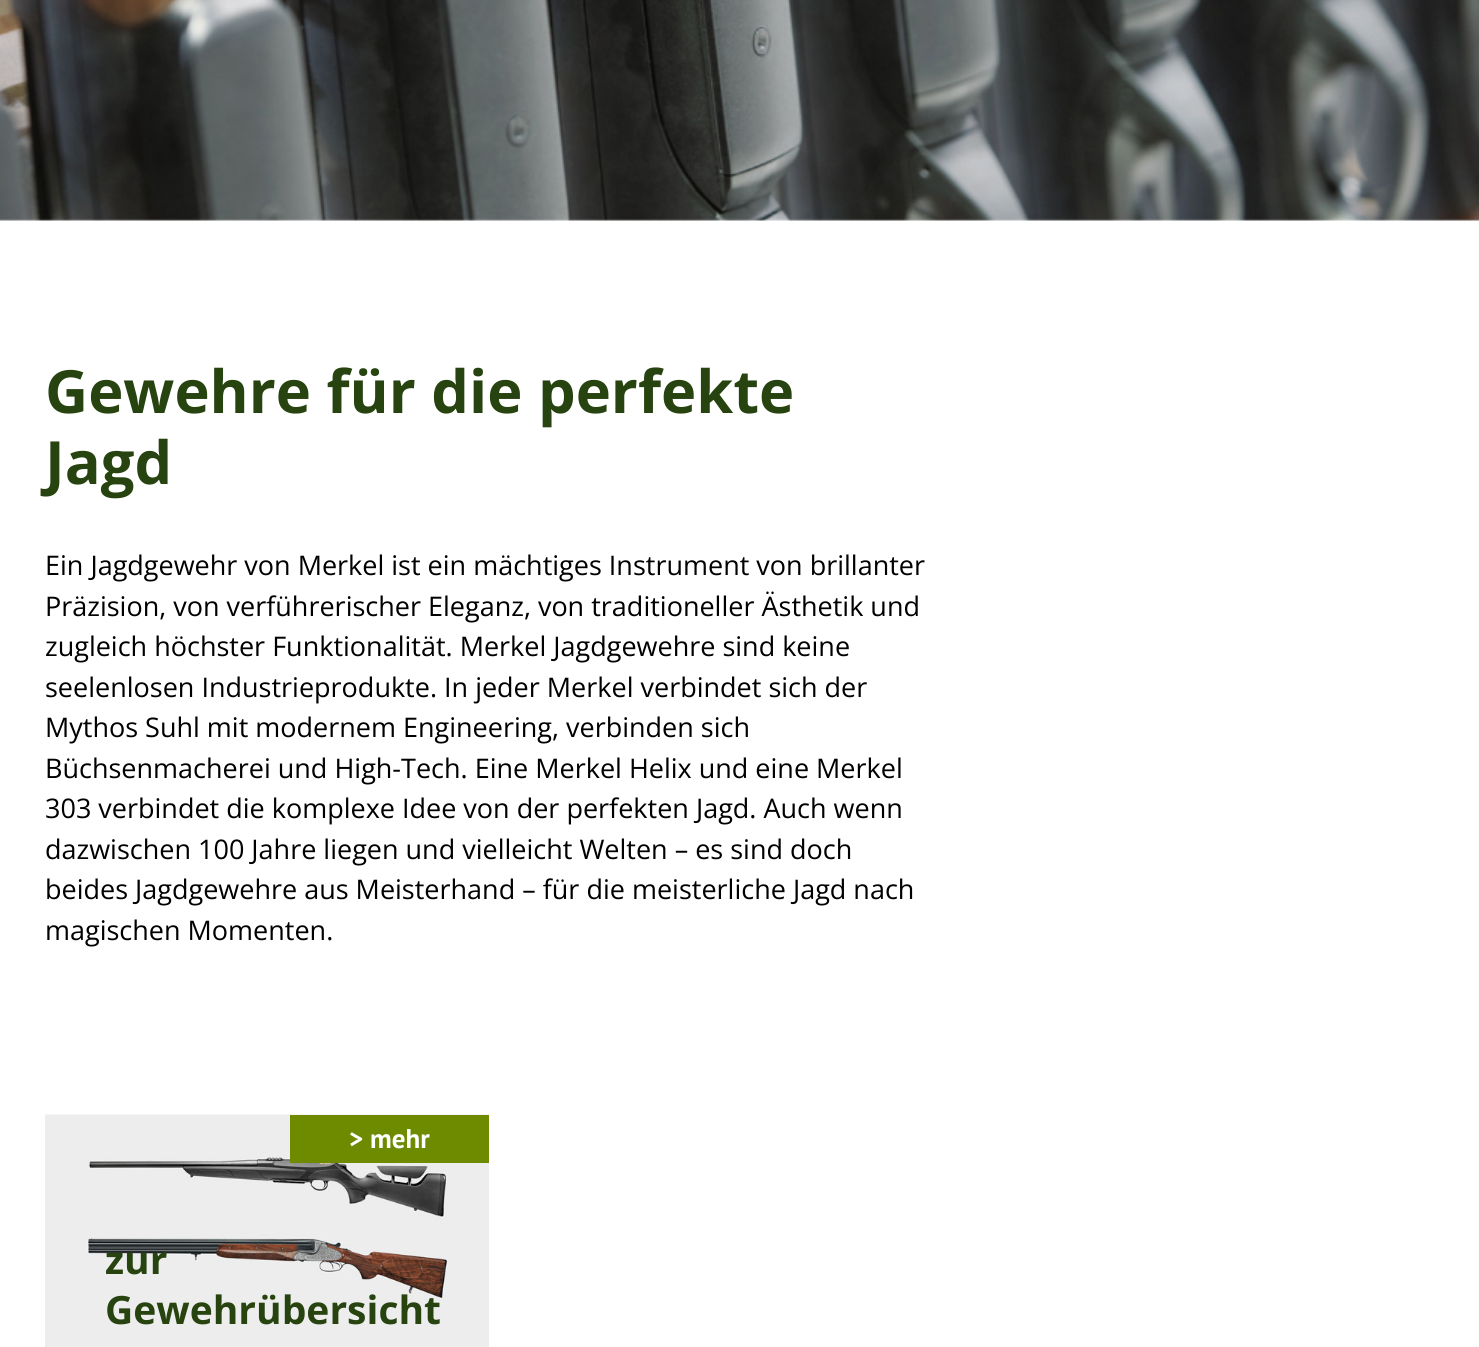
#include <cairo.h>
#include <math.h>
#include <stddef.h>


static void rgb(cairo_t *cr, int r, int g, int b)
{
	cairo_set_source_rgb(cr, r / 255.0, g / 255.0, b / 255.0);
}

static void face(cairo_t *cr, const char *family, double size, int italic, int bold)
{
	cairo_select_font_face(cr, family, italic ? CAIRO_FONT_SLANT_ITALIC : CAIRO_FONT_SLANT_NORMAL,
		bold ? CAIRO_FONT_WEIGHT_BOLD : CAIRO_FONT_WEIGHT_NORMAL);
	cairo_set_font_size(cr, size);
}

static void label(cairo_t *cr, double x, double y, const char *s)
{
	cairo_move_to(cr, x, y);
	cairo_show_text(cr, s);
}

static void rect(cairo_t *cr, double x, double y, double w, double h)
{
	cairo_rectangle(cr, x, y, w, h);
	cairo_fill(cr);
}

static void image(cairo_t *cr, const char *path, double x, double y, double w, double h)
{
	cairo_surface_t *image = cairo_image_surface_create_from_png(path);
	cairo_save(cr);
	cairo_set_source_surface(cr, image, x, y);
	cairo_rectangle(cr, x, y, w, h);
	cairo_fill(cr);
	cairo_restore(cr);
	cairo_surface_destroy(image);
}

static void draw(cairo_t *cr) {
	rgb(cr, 255, 255, 255);
	cairo_paint(cr);
	image(cr, "image0.png", 0, 0, 1479, 221);
	face(cr, "Open Sans", 59.6, 0, 1);
	rgb(cr, 39, 67, 15);
	label(cr, 45, 413, "Gewehre für die perfekte");
	label(cr, 45, 484, "Jagd");
	face(cr, "Open Sans", 27, 0, 0);
	rgb(cr, 0, 0, 0);
	label(cr, 45, 575, "Ein Jagdgewehr von Merkel ist ein mächtiges Instrument von brillanter");
	label(cr, 45, 616, "Präzision, von verführerischer Eleganz, von traditioneller Ästhetik und");
	label(cr, 45, 656, "zugleich höchster Funktionalität. Merkel Jagdgewehre sind keine");
	label(cr, 45, 697, "seelenlosen Industrieprodukte. In jeder Merkel verbindet sich der");
	label(cr, 45, 737, "Mythos Suhl mit modernem Engineering, verbinden sich");
	label(cr, 45, 778, "Büchsenmacherei und High-Tech. Eine Merkel Helix und eine Merkel");
	label(cr, 45, 818, "303 verbindet die komplexe Idee von der perfekten Jagd. Auch wenn");
	label(cr, 45, 859, "dazwischen 100 Jahre liegen und vielleicht Welten – es sind doch");
	label(cr, 45, 899, "beides Jagdgewehre aus Meisterhand – für die meisterliche Jagd nach");
	label(cr, 45, 940, "magischen Momenten.");
	image(cr, "image1.png", 45, 1114, 444, 233);
	rgb(cr, 110, 139, 0);
	rect(cr, 290, 1115, 199, 48);
	face(cr, "PT Sans", 27, 0, 1);
	rgb(cr, 255, 255, 255);
	label(cr, 349, 1148, "> mehr");
	face(cr, "Open Sans", 39, 0, 1);
	rgb(cr, 39, 67, 15);
	label(cr, 105, 1274, "zur");
	label(cr, 105, 1324, "Gewehrübersicht");
}

int main(void) {
	cairo_surface_t *surface = cairo_image_surface_create(CAIRO_FORMAT_RGB24, 1479, 1347);
	cairo_t *cr = cairo_create(surface);
	cairo_font_options_t *options = cairo_font_options_create();
	cairo_font_options_set_hint_metrics(options, CAIRO_HINT_METRICS_OFF);
	cairo_font_options_set_hint_style(options, CAIRO_HINT_STYLE_NONE);
	cairo_set_font_options(cr, options);
	cairo_set_miter_limit(cr, 4);
	draw(cr);
	cairo_surface_write_to_png(surface, "render.png");
	cairo_font_options_destroy(options);
	cairo_destroy(cr);
	cairo_surface_destroy(surface);
	return 0;
}
